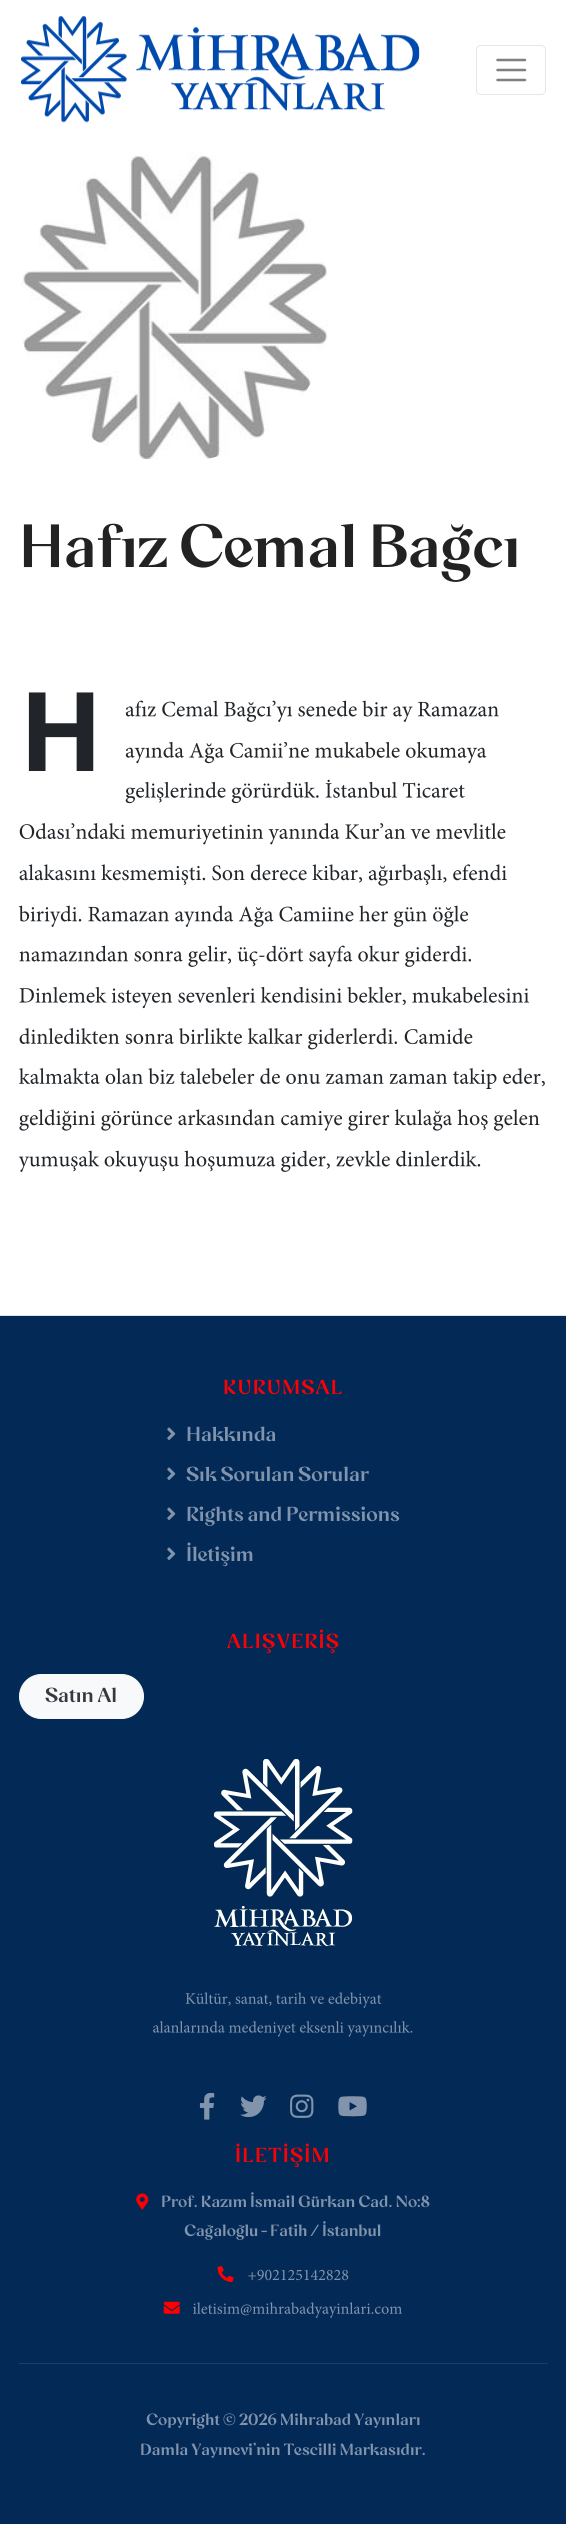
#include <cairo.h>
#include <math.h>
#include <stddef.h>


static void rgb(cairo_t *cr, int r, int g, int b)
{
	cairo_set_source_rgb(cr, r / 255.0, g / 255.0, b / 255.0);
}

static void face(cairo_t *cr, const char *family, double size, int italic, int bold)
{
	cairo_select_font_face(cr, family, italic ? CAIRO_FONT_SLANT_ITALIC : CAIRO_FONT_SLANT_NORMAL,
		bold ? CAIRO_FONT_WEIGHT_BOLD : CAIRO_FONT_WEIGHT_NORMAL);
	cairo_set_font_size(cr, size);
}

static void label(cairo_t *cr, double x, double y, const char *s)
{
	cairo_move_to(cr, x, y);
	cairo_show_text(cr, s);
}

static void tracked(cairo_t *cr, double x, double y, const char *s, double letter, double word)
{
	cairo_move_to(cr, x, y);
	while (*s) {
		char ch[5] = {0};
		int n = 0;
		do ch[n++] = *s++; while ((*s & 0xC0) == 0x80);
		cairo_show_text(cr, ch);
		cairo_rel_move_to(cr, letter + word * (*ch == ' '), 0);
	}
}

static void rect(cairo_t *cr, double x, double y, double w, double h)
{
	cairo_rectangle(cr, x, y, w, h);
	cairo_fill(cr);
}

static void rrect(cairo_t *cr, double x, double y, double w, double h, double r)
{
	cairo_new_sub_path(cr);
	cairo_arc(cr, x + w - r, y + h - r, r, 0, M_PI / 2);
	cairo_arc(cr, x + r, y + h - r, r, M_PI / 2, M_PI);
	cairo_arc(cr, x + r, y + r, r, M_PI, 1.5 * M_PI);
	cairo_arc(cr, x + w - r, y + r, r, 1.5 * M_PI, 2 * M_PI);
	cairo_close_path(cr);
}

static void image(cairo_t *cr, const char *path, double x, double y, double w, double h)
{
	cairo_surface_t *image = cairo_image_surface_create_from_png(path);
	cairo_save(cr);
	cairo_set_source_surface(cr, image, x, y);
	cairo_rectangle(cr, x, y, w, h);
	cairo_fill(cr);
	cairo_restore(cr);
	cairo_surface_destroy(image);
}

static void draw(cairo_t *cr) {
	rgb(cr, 255, 255, 255);
	cairo_paint(cr);
	image(cr, "image0.png", 21, 16, 399, 107);
	rrect(cr, 476.5, 45.5, 69, 49, 4.5);
	rgb(cr, 230, 230, 230);
	cairo_set_line_width(cr, 1);
	cairo_stroke(cr);
	cairo_new_path(cr);
	cairo_move_to(cr, 497.5, 60);
	cairo_line_to(cr, 525, 60);
	cairo_move_to(cr, 497.5, 70);
	cairo_line_to(cr, 525, 70);
	cairo_move_to(cr, 497.5, 80);
	cairo_line_to(cr, 525, 80);
	rgb(cr, 128, 128, 128);
	cairo_set_line_width(cr, 2.5);
	cairo_set_line_cap(cr, CAIRO_LINE_CAP_ROUND);
	cairo_stroke(cr);
	image(cr, "image1.png", 21, 152, 307, 308);
	face(cr, "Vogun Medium", 60, 0, 0);
	rgb(cr, 34, 34, 34);
	label(cr, 19, 567, "Hafız Cemal Bağcı");
	face(cr, "Noto Sans", 110, 0, 1);
	rgb(cr, 33, 37, 41);
	label(cr, 19, 771, "H");
	image(cr, "image2.png", 125, 700, 374, 22);
	image(cr, "image3.png", 125, 741, 362, 23);
	image(cr, "image4.png", 125, 779, 340, 25);
	image(cr, "image5.png", 19, 823, 487, 22);
	image(cr, "image6.png", 19, 864, 488, 22);
	image(cr, "image7.png", 18, 905, 64, 22);
	image(cr, "image8.png", 88, 905, 381, 22);
	image(cr, "image9.png", 19, 945, 452, 22);
	image(cr, "image10.png", 19, 986, 510, 23);
	image(cr, "image11.png", 19, 1028, 378, 22);
	image(cr, "image12.png", 404, 1028, 69, 17);
	image(cr, "image13.png", 19, 1068, 526, 21);
	image(cr, "image14.png", 19, 1109, 521, 22);
	image(cr, "image15.png", 18, 1150, 463, 22);
	rgb(cr, 3, 41, 87);
	rect(cr, 0, 1316, 566, 1208);
	rgb(cr, 222, 226, 230);
	rect(cr, 0, 1315, 566, 1);
	face(cr, "Vogun Medium", 20, 0, 0);
	rgb(cr, 255, 0, 2);
	tracked(cr, 223, 1394, "KURUMSAL", 1.25, 0);
	image(cr, "image16.png", 167, 1427, 9, 13);
	rgb(cr, 129, 148, 171);
	label(cr, 186, 1441, "Hakkında");
	image(cr, "image16.png", 167, 1467, 9, 13);
	label(cr, 186, 1481, "Sık Sorulan Sorular");
	image(cr, "image16.png", 167, 1507, 9, 13);
	label(cr, 186, 1521, "Rights and Permissions");
	image(cr, "image16.png", 167, 1547, 9, 13);
	label(cr, 186, 1561, "İletişim");
	rgb(cr, 255, 0, 2);
	tracked(cr, 227, 1648, "ALIŞVERİŞ", 1.25, 0);
	rgb(cr, 248, 249, 250);
	rrect(cr, 19.5, 1674.5, 124, 44, 22);
	cairo_fill_preserve(cr);
	cairo_set_line_width(cr, 1);
	cairo_set_line_cap(cr, CAIRO_LINE_CAP_BUTT);
	cairo_stroke(cr);
	rgb(cr, 52, 58, 64);
	label(cr, 45, 1702, "Satın Al");
	image(cr, "image17.png", 214, 1759, 139, 187);
	image(cr, "image18.png", 185, 1992, 197, 16);
	image(cr, "image19.png", 153, 2021, 260, 16);
	image(cr, "image20.png", 199, 2092, 16, 28);
	image(cr, "image21.png", 240, 2095, 27, 23);
	image(cr, "image22.png", 290, 2094, 24, 24);
	image(cr, "image23.png", 338, 2096, 29, 21);
	rgb(cr, 255, 0, 2);
	tracked(cr, 235, 2162, "İLETİŞİM", 1.25, 0);
	image(cr, "image24.png", 136, 2193, 13, 17);
	face(cr, "Vogun Medium", 16, 0, 0);
	rgb(cr, 129, 148, 171);
	label(cr, 161, 2207, "Prof. Kazım İsmail Gürkan Cad. No:8");
	label(cr, 184, 2236, "Cağaloğlu - Fatih / İstanbul");
	image(cr, "image25.png", 217, 2266, 17, 16);
	image(cr, "image26.png", 248, 2269, 101, 12);
	image(cr, "image27.png", 163, 2301, 17, 13);
	image(cr, "image28.png", 193, 2302, 209, 16);
	rgb(cr, 28, 62, 104);
	rect(cr, 19, 2363, 529, 1);
	rgb(cr, 129, 148, 171);
	label(cr, 146, 2425, "Copyright © 2026 Mihrabad Yayınları");
	label(cr, 140, 2455, "Damla Yayınevi'nin Tescilli Markasıdır.");
}

int main(void) {
	cairo_surface_t *surface = cairo_image_surface_create(CAIRO_FORMAT_RGB24, 566, 2529);
	cairo_t *cr = cairo_create(surface);
	cairo_font_options_t *options = cairo_font_options_create();
	cairo_font_options_set_hint_metrics(options, CAIRO_HINT_METRICS_OFF);
	cairo_font_options_set_hint_style(options, CAIRO_HINT_STYLE_NONE);
	cairo_set_font_options(cr, options);
	cairo_set_miter_limit(cr, 4);
	draw(cr);
	cairo_surface_write_to_png(surface, "render.png");
	cairo_font_options_destroy(options);
	cairo_destroy(cr);
	cairo_surface_destroy(surface);
	return 0;
}
